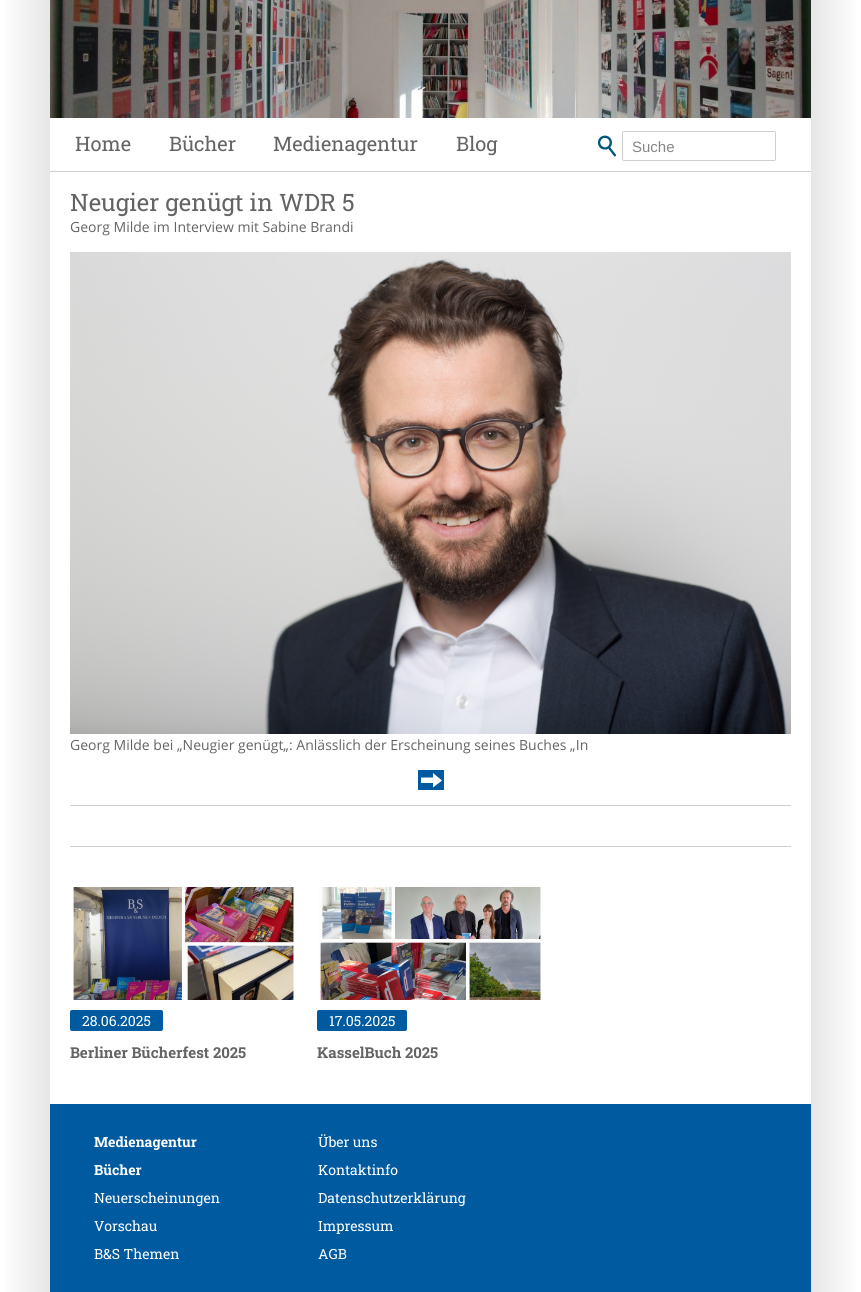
#include <cairo.h>
#include <math.h>
#include <stddef.h>


static void rgb(cairo_t *cr, int r, int g, int b)
{
	cairo_set_source_rgb(cr, r / 255.0, g / 255.0, b / 255.0);
}

static void face(cairo_t *cr, const char *family, double size, int italic, int bold)
{
	cairo_select_font_face(cr, family, italic ? CAIRO_FONT_SLANT_ITALIC : CAIRO_FONT_SLANT_NORMAL,
		bold ? CAIRO_FONT_WEIGHT_BOLD : CAIRO_FONT_WEIGHT_NORMAL);
	cairo_set_font_size(cr, size);
}

static void label(cairo_t *cr, double x, double y, const char *s)
{
	cairo_move_to(cr, x, y);
	cairo_show_text(cr, s);
}

static void rect(cairo_t *cr, double x, double y, double w, double h)
{
	cairo_rectangle(cr, x, y, w, h);
	cairo_fill(cr);
}

static void rrect(cairo_t *cr, double x, double y, double w, double h, double r)
{
	cairo_new_sub_path(cr);
	cairo_arc(cr, x + w - r, y + h - r, r, 0, M_PI / 2);
	cairo_arc(cr, x + r, y + h - r, r, M_PI / 2, M_PI);
	cairo_arc(cr, x + r, y + r, r, M_PI, 1.5 * M_PI);
	cairo_arc(cr, x + w - r, y + r, r, 1.5 * M_PI, 2 * M_PI);
	cairo_close_path(cr);
}

static void image(cairo_t *cr, const char *path, double x, double y, double w, double h)
{
	cairo_surface_t *image = cairo_image_surface_create_from_png(path);
	cairo_save(cr);
	cairo_set_source_surface(cr, image, x, y);
	cairo_rectangle(cr, x, y, w, h);
	cairo_fill(cr);
	cairo_restore(cr);
	cairo_surface_destroy(image);
}

static void draw(cairo_t *cr) {
	cairo_pattern_t *gradient;
	rgb(cr, 255, 255, 255);
	cairo_paint(cr);
	gradient = cairo_pattern_create_linear(0, 567, 50, 567);
	cairo_pattern_add_color_stop_rgba(gradient, 0, 1, 1, 1, 1);
	cairo_pattern_add_color_stop_rgba(gradient, 1, 0.902, 0.902, 0.902, 1);
	cairo_set_source(cr, gradient);
	cairo_pattern_destroy(gradient);
	rect(cr, 5, 0, 45, 1292);
	image(cr, "image0.png", 50, 0, 761, 118);
	face(cr, "Roboto Slab", 20, 0, 0);
	rgb(cr, 100, 100, 100);
	label(cr, 75, 151, "Home");
	label(cr, 169, 151, "Bücher");
	label(cr, 273, 151, "Medienagentur");
	label(cr, 456, 151, "Blog");
	image(cr, "image1.png", 598, 135, 18, 22);
	rrect(cr, 622.5, 131.5, 153, 29, 1.5);
	rgb(cr, 207, 207, 207);
	cairo_set_line_width(cr, 1);
	cairo_stroke(cr);
	face(cr, "Liberation Sans", 15, 0, 0);
	rgb(cr, 135, 135, 135);
	label(cr, 632, 152, "Suche");
	gradient = cairo_pattern_create_linear(861, 567, 811, 567);
	cairo_pattern_add_color_stop_rgba(gradient, 0, 1, 1, 1, 1);
	cairo_pattern_add_color_stop_rgba(gradient, 1, 0.902, 0.902, 0.902, 1);
	cairo_set_source(cr, gradient);
	cairo_pattern_destroy(gradient);
	rect(cr, 811, 0, 45, 1292);
	rgb(cr, 207, 207, 207);
	rect(cr, 50, 171, 761, 1);
	rect(cr, 70, 805, 721, 1);
	face(cr, "Roboto Slab", 24, 0, 0);
	rgb(cr, 100, 100, 100);
	label(cr, 70, 211, "Neugier genügt in WDR 5");
	face(cr, "Open Sans", 14, 0, 0);
	label(cr, 70, 232, "Georg Milde im Interview mit Sabine Brandi");
	image(cr, "image2.png", 70, 252, 721, 482);
	label(cr, 70, 750, "Georg Milde bei „Neugier genügt„: Anlässlich der Erscheinung seines Buches „In");
	rgb(cr, 0, 90, 160);
	rect(cr, 418, 770, 26, 20);
	rgb(cr, 255, 255, 255);
	cairo_new_path(cr);
	cairo_move_to(cr, 442, 780.5);
	cairo_line_to(cr, 433, 787.5);
	cairo_line_to(cr, 433, 783);
	cairo_line_to(cr, 421, 783);
	cairo_line_to(cr, 421, 777.5);
	cairo_line_to(cr, 433, 777.5);
	cairo_line_to(cr, 433, 773);
	cairo_close_path(cr);
	cairo_fill(cr);
	rgb(cr, 207, 207, 207);
	rect(cr, 70, 846, 721, 1);
	image(cr, "image3.png", 73, 887, 222, 113);
	rgb(cr, 0, 90, 160);
	rrect(cr, 70, 1010, 93, 21, 2);
	cairo_fill(cr);
	face(cr, "Roboto Slab", 14, 0, 0);
	rgb(cr, 255, 255, 255);
	label(cr, 82, 1026, "28.06.2025");
	face(cr, "Roboto Slab", 15, 0, 1);
	rgb(cr, 100, 100, 100);
	label(cr, 70, 1058, "Berliner Bücherfest 2025");
	image(cr, "image4.png", 319, 887, 222, 113);
	rgb(cr, 0, 90, 160);
	rrect(cr, 317, 1010, 90, 21, 2);
	cairo_fill(cr);
	face(cr, "Roboto Slab", 14, 0, 0);
	rgb(cr, 255, 255, 255);
	label(cr, 329, 1026, "17.05.2025");
	face(cr, "Roboto Slab", 15, 0, 1);
	rgb(cr, 100, 100, 100);
	label(cr, 317, 1058, "KasselBuch 2025");
	rgb(cr, 0, 90, 160);
	rect(cr, 50, 1104, 761, 188);
	face(cr, "Roboto Slab", 14, 0, 1);
	rgb(cr, 255, 255, 255);
	label(cr, 94, 1147, "Medienagentur");
	label(cr, 94, 1175, "Bücher");
	face(cr, "Roboto Slab", 14, 0, 0);
	label(cr, 94, 1203, "Neuerscheinungen");
	label(cr, 94, 1231, "Vorschau");
	label(cr, 94, 1259, "B&S Themen");
	label(cr, 318, 1147, "Über uns");
	label(cr, 318, 1175, "Kontaktinfo");
	label(cr, 318, 1203, "Datenschutzerklärung");
	label(cr, 318, 1231, "Impressum");
	label(cr, 318, 1259, "AGB");
}

int main(void) {
	cairo_surface_t *surface = cairo_image_surface_create(CAIRO_FORMAT_RGB24, 861, 1292);
	cairo_t *cr = cairo_create(surface);
	cairo_font_options_t *options = cairo_font_options_create();
	cairo_font_options_set_hint_metrics(options, CAIRO_HINT_METRICS_OFF);
	cairo_font_options_set_hint_style(options, CAIRO_HINT_STYLE_NONE);
	cairo_set_font_options(cr, options);
	cairo_set_miter_limit(cr, 4);
	draw(cr);
	cairo_surface_write_to_png(surface, "render.png");
	cairo_font_options_destroy(options);
	cairo_destroy(cr);
	cairo_surface_destroy(surface);
	return 0;
}
